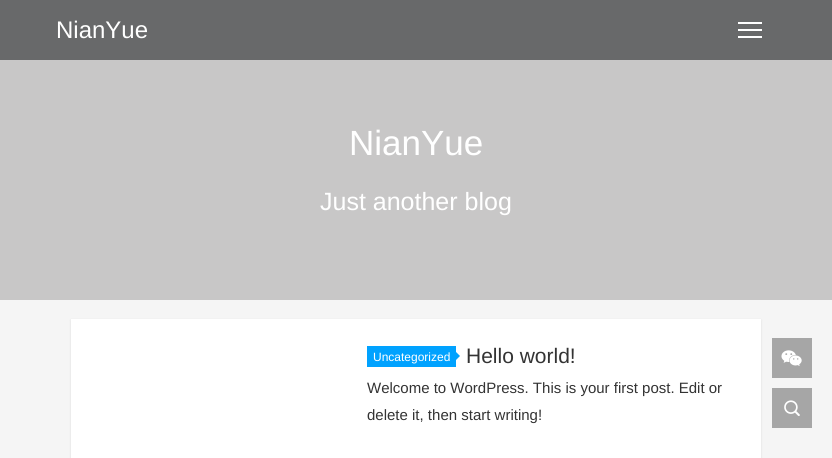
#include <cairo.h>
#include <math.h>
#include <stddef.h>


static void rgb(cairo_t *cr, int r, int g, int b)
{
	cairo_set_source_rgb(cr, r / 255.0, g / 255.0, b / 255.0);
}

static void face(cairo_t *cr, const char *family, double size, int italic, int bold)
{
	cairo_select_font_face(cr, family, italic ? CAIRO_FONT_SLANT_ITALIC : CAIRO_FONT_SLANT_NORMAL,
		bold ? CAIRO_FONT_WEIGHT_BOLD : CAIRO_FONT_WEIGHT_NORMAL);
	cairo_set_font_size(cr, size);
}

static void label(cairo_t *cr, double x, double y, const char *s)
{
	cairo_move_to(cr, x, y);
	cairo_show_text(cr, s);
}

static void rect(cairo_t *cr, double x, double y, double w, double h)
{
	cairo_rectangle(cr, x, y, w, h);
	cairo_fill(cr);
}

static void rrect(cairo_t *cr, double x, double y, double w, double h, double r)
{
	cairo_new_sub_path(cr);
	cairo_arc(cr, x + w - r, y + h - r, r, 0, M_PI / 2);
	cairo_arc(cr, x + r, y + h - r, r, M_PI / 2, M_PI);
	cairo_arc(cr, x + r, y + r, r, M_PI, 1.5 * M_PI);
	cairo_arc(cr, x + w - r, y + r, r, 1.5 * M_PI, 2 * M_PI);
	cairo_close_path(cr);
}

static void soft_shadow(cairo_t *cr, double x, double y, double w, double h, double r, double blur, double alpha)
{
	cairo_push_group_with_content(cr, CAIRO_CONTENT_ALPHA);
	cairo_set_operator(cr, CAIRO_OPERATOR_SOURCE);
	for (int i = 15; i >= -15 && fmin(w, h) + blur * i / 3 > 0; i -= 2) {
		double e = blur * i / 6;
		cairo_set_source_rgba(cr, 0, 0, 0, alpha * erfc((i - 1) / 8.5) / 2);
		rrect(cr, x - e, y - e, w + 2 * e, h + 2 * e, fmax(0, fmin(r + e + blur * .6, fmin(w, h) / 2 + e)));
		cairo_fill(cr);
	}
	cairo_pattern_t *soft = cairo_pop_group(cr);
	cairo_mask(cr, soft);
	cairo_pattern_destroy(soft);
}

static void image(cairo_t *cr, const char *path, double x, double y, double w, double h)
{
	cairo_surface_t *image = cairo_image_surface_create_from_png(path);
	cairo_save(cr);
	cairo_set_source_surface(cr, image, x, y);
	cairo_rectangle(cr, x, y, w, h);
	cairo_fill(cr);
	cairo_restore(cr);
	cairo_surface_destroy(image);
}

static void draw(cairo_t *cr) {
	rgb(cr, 245, 245, 245);
	cairo_paint(cr);
	rgb(cr, 104, 105, 106);
	rect(cr, 0, 0, 832, 60);
	face(cr, "Liberation Sans", 24, 0, 0);
	rgb(cr, 255, 255, 255);
	label(cr, 56, 38, "NianYue");
	rect(cr, 738, 22, 24, 2);
	rect(cr, 738, 29, 24, 2);
	rect(cr, 738, 36, 24, 2);
	rgb(cr, 200, 199, 199);
	rect(cr, 0, 60, 832, 240);
	face(cr, "Liberation Sans", 35, 0, 0);
	rgb(cr, 255, 255, 255);
	label(cr, 349, 155, "NianYue");
	face(cr, "Liberation Sans", 25, 0, 0);
	label(cr, 320, 210, "Just another blog");
	rgb(cr, 0, 0, 0);
	soft_shadow(cr, 71, 320, 690, 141, 0, 1, 0.1);
	rgb(cr, 255, 255, 255);
	rect(cr, 71, 319, 690, 139);
	rgb(cr, 0, 162, 255);
	rect(cr, 367, 346, 89, 21);
	face(cr, "Liberation Sans", 12, 0, 0);
	rgb(cr, 255, 255, 255);
	label(cr, 373, 361, "Uncategorized");
	rgb(cr, 0, 162, 255);
	cairo_new_path(cr);
	cairo_move_to(cr, 456, 360);
	cairo_line_to(cr, 456, 352);
	cairo_line_to(cr, 460, 356);
	cairo_close_path(cr);
	cairo_fill(cr);
	face(cr, "Liberation Sans", 21, 0, 0);
	rgb(cr, 51, 51, 51);
	label(cr, 466, 363, "Hello world!");
	face(cr, "Liberation Sans", 15, 0, 0);
	label(cr, 367, 393, "Welcome to WordPress. This is your first post. Edit or");
	label(cr, 367, 420, "delete it, then start writing!");
	rgb(cr, 166, 166, 166);
	rect(cr, 772, 338, 40, 40);
	image(cr, "image0.png", 781, 350, 21, 16);
	rect(cr, 772, 388, 40, 40);
	image(cr, "image1.png", 784, 400, 16, 16);
}

int main(void) {
	cairo_surface_t *surface = cairo_image_surface_create(CAIRO_FORMAT_RGB24, 832, 458);
	cairo_t *cr = cairo_create(surface);
	cairo_font_options_t *options = cairo_font_options_create();
	cairo_font_options_set_hint_metrics(options, CAIRO_HINT_METRICS_OFF);
	cairo_font_options_set_hint_style(options, CAIRO_HINT_STYLE_NONE);
	cairo_set_font_options(cr, options);
	cairo_set_miter_limit(cr, 4);
	draw(cr);
	cairo_surface_write_to_png(surface, "render.png");
	cairo_font_options_destroy(options);
	cairo_destroy(cr);
	cairo_surface_destroy(surface);
	return 0;
}
